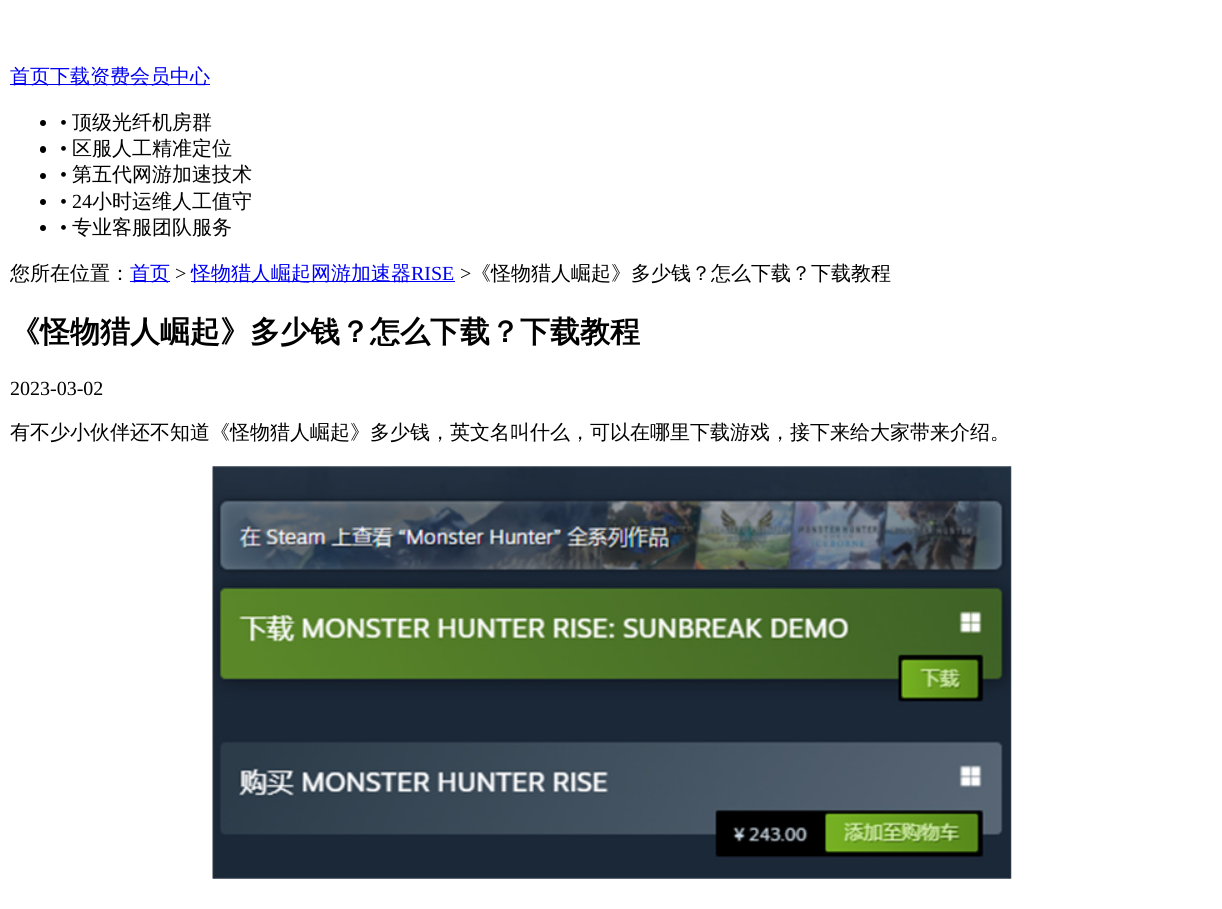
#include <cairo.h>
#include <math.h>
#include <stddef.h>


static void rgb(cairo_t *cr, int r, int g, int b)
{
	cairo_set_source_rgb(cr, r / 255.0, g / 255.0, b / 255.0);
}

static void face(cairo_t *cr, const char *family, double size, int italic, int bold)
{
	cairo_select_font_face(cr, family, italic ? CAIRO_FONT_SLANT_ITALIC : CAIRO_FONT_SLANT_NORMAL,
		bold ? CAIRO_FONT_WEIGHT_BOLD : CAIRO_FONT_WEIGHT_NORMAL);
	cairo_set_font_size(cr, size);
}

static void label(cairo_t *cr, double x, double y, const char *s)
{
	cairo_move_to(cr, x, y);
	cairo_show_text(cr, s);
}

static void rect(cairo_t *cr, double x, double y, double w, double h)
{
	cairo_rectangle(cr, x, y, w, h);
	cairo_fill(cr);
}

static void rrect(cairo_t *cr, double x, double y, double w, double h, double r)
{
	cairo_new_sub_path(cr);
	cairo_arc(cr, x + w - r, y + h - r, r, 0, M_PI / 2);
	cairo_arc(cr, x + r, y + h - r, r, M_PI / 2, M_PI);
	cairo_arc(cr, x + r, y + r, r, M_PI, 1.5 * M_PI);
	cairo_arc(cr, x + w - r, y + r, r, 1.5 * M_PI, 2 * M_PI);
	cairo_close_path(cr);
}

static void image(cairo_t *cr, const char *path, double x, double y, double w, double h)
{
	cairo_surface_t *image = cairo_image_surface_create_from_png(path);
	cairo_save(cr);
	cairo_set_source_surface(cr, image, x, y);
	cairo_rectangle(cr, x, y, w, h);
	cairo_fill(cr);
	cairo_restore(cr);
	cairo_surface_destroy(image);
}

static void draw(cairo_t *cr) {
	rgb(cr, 255, 255, 255);
	cairo_paint(cr);
	rgb(cr, 0, 0, 238);
	rect(cr, 10, 84, 200, 1);
	face(cr, "WenQuanYi Zen Hei Medium", 20, 0, 0);
	label(cr, 10, 83, "首页下载资费会员中心");
	rgb(cr, 0, 0, 0);
	cairo_new_path(cr);
	cairo_arc(cr, 43, 123, 3, 0, 2 * M_PI);
	cairo_fill(cr);
	face(cr, "Liberation Serif", 20, 0, 0);
	label(cr, 60, 129, "•");
	face(cr, "WenQuanYi Zen Hei Medium", 20, 0, 0);
	label(cr, 72, 129, "顶级光纤机房群");
	rrect(cr, 40, 146, 6, 7, 3);
	cairo_fill(cr);
	face(cr, "Liberation Serif", 20, 0, 0);
	label(cr, 60, 155, "•");
	face(cr, "WenQuanYi Zen Hei Medium", 20, 0, 0);
	label(cr, 72, 155, "区服人工精准定位");
	cairo_new_path(cr);
	cairo_arc(cr, 43, 176, 3, 0, 2 * M_PI);
	cairo_fill(cr);
	face(cr, "Liberation Serif", 20, 0, 0);
	label(cr, 60, 181, "•");
	face(cr, "WenQuanYi Zen Hei Medium", 20, 0, 0);
	label(cr, 72, 181, "第五代网游加速技术");
	cairo_new_path(cr);
	cairo_arc(cr, 43, 202, 3, 0, 2 * M_PI);
	cairo_fill(cr);
	face(cr, "Liberation Serif", 20, 0, 0);
	label(cr, 60, 208, "• 24");
	face(cr, "WenQuanYi Zen Hei Medium", 20, 0, 0);
	label(cr, 92, 208, "小时运维人工值守");
	cairo_new_path(cr);
	cairo_arc(cr, 43, 228, 3, 0, 2 * M_PI);
	cairo_fill(cr);
	face(cr, "Liberation Serif", 20, 0, 0);
	label(cr, 60, 234, "•");
	face(cr, "WenQuanYi Zen Hei Medium", 20, 0, 0);
	label(cr, 72, 234, "专业客服团队服务");
	label(cr, 10, 280, "您所在位置：");
	rgb(cr, 0, 0, 238);
	rect(cr, 130, 281, 40, 1);
	label(cr, 130, 280, "首页");
	face(cr, "Liberation Serif", 20, 0, 0);
	rgb(cr, 0, 0, 0);
	label(cr, 175, 280, ">");
	rgb(cr, 0, 0, 238);
	rect(cr, 191, 281, 264, 1);
	face(cr, "WenQuanYi Zen Hei Medium", 20, 0, 0);
	label(cr, 191, 280, "怪物猎人崛起网游加速器");
	face(cr, "Liberation Serif", 20, 0, 0);
	label(cr, 411, 280, "RISE");
	rgb(cr, 0, 0, 0);
	label(cr, 460, 280, ">");
	face(cr, "WenQuanYi Zen Hei Medium", 20, 0, 0);
	label(cr, 471, 280, "《怪物猎人崛起》多少钱？怎么下载？下载教程");
	face(cr, "WenQuanYi Zen Hei", 30, 0, 1);
	label(cr, 10, 342, "《怪物猎人崛起》多少钱？怎么下载？下载教程");
	face(cr, "Liberation Serif", 20, 0, 0);
	label(cr, 10, 395, "2023-03-02");
	face(cr, "WenQuanYi Zen Hei Medium", 20, 0, 0);
	label(cr, 10, 439, "有不少小伙伴还不知道《怪物猎人崛起》多少钱，英文名叫什么，可以在哪里下载游戏，接下来给大家带来介绍。");
	image(cr, "image0.png", 212, 466, 800, 413);
}

int main(void) {
	cairo_surface_t *surface = cairo_image_surface_create(CAIRO_FORMAT_RGB24, 1222, 909);
	cairo_t *cr = cairo_create(surface);
	cairo_font_options_t *options = cairo_font_options_create();
	cairo_font_options_set_hint_metrics(options, CAIRO_HINT_METRICS_OFF);
	cairo_font_options_set_hint_style(options, CAIRO_HINT_STYLE_NONE);
	cairo_set_font_options(cr, options);
	cairo_set_miter_limit(cr, 4);
	draw(cr);
	cairo_surface_write_to_png(surface, "render.png");
	cairo_font_options_destroy(options);
	cairo_destroy(cr);
	cairo_surface_destroy(surface);
	return 0;
}
